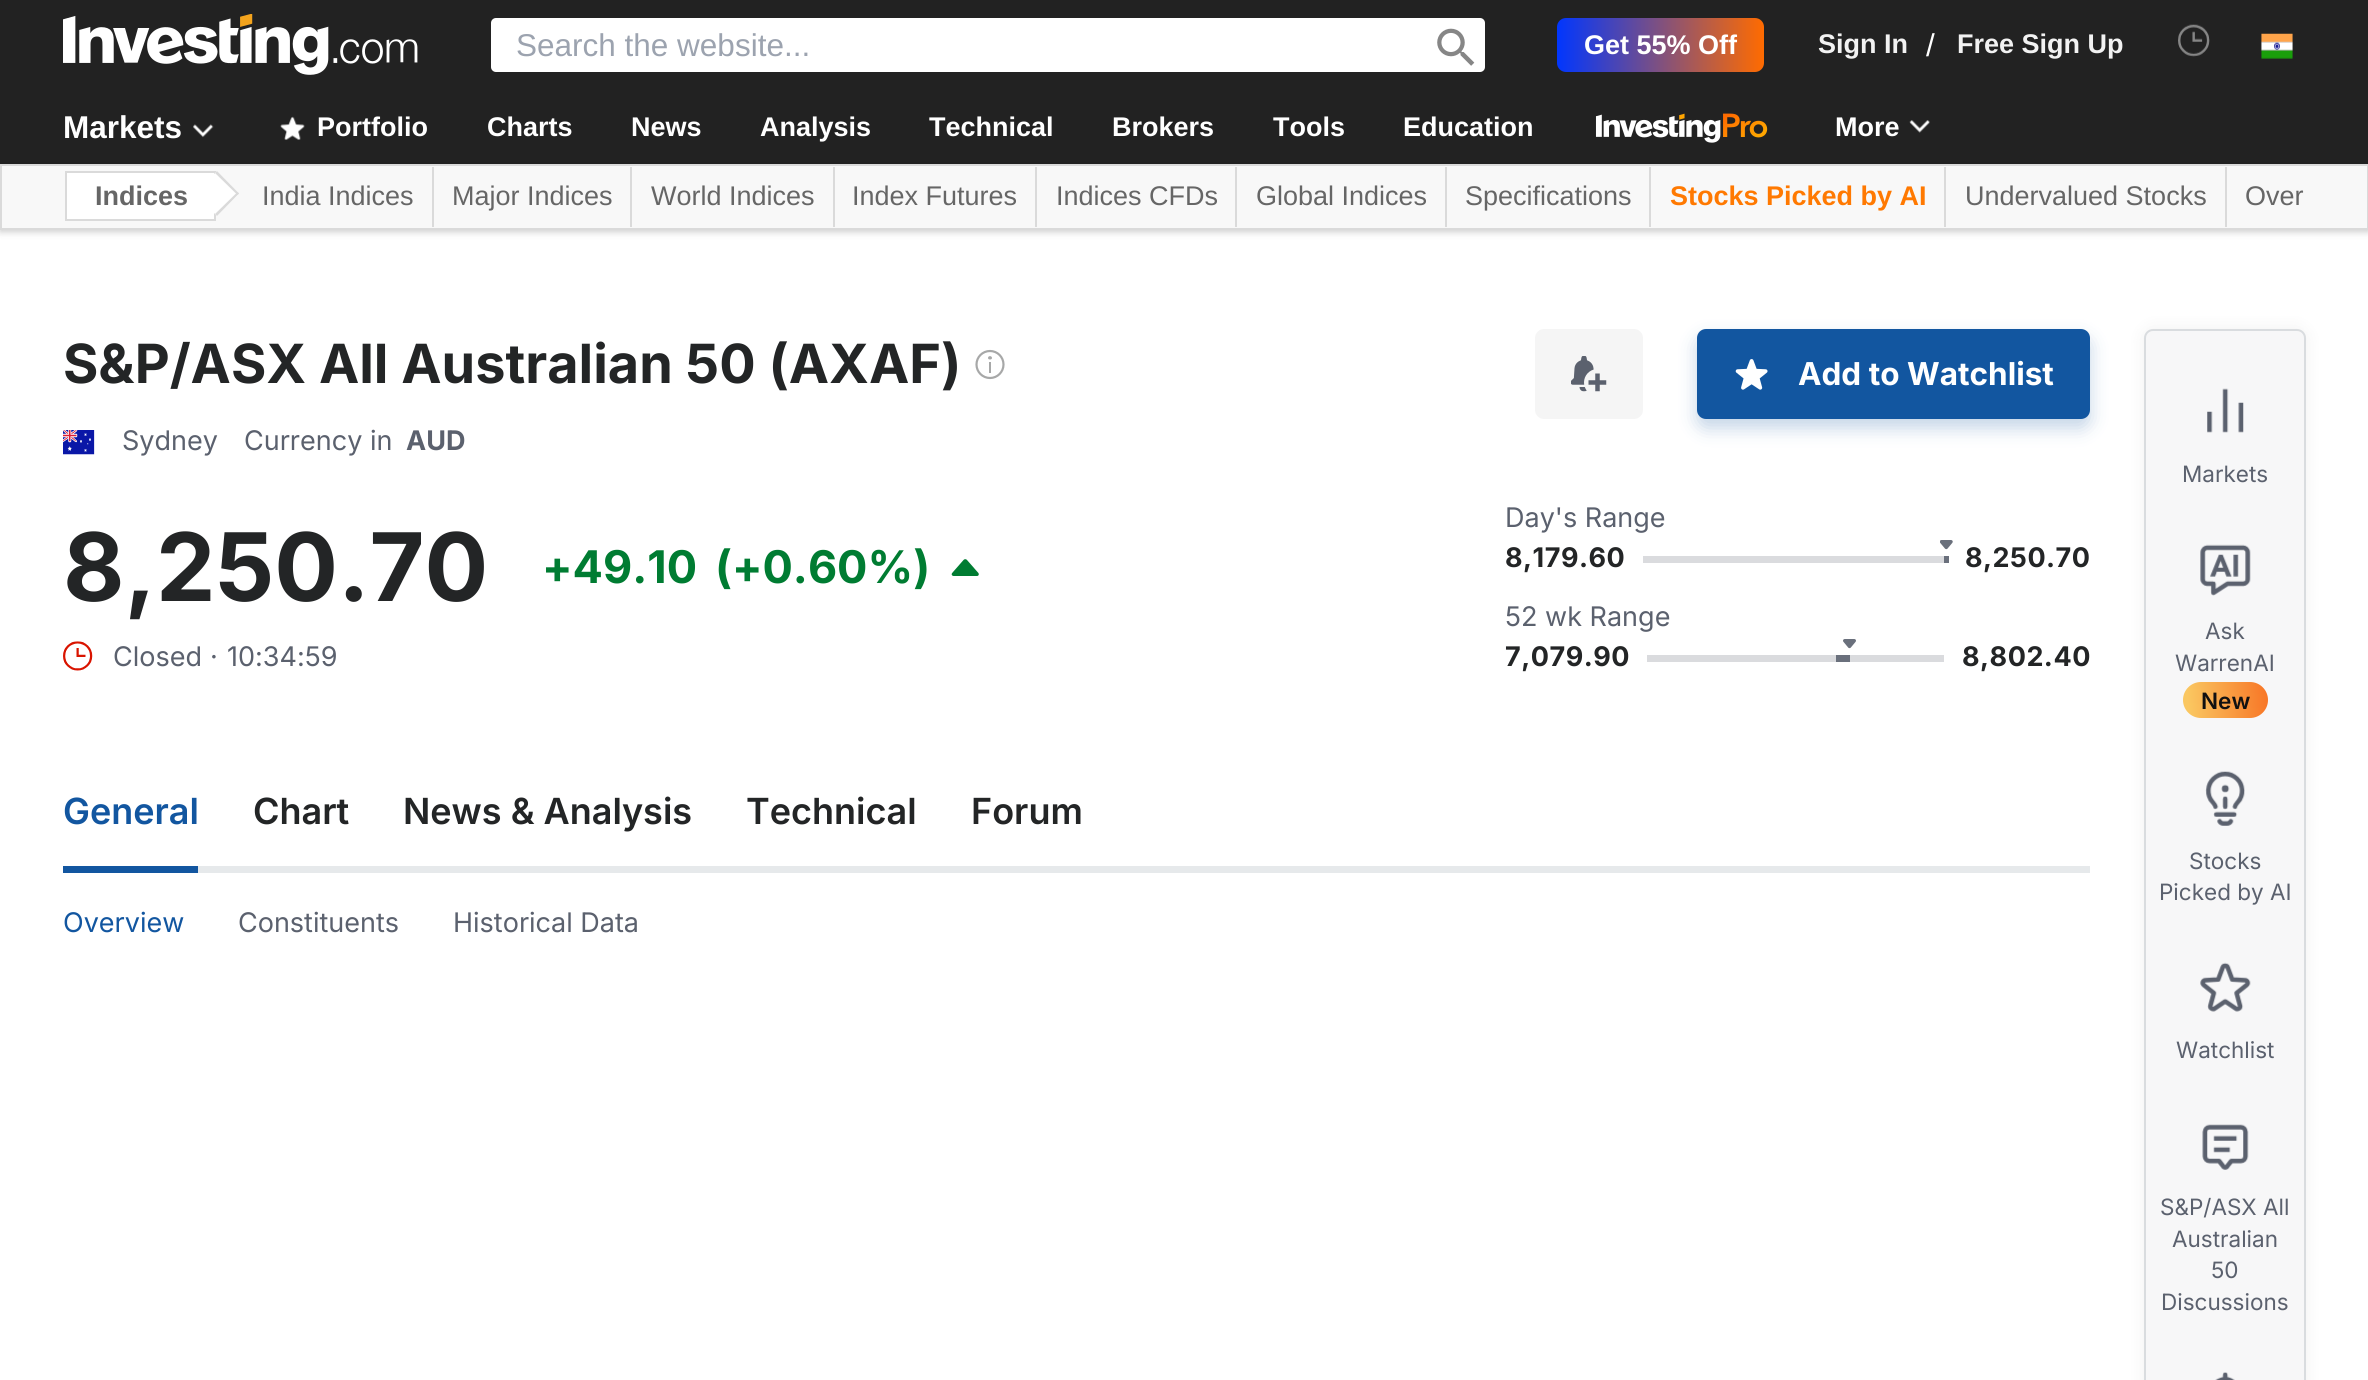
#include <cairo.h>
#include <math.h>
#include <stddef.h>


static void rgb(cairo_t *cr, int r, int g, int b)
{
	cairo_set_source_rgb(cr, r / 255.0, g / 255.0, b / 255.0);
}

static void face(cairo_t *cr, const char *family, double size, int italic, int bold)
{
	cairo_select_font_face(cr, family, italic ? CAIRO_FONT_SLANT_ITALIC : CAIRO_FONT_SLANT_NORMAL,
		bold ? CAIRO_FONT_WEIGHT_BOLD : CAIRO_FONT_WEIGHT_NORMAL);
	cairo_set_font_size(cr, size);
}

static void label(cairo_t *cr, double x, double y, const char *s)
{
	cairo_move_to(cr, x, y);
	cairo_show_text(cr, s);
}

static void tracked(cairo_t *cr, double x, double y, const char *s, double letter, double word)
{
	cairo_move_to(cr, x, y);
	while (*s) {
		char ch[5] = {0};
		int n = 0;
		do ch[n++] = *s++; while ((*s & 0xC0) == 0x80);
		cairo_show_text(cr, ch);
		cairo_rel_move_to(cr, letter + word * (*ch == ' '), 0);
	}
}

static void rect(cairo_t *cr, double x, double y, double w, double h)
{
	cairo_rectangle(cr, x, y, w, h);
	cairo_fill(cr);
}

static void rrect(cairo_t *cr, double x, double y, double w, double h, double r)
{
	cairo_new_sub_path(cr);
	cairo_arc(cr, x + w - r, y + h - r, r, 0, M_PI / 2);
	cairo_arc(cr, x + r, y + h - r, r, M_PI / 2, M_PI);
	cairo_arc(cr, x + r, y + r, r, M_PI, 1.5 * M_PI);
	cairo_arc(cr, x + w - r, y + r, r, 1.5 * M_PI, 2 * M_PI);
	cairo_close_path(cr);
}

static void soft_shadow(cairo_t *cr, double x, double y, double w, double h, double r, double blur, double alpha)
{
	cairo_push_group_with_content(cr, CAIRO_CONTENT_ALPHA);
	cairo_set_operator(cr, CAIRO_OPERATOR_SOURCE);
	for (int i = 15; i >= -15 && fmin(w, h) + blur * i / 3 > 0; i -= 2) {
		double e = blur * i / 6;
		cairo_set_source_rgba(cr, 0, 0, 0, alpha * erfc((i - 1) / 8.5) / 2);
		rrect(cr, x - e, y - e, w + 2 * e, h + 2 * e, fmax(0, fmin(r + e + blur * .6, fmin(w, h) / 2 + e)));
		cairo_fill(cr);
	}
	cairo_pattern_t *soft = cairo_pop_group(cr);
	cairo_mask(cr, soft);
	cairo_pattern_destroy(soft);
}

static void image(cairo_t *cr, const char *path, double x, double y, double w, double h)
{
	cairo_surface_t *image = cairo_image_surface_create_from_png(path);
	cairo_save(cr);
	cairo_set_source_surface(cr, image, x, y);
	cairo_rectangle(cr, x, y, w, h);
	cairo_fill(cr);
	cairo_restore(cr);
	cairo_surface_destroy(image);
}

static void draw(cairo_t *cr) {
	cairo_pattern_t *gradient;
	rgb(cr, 255, 255, 255);
	cairo_paint(cr);
	rgb(cr, 34, 34, 34);
	rect(cr, 0, 0, 2368, 164);
	image(cr, "image0.png", 63, 14, 355, 61);
	rgb(cr, 255, 255, 255);
	rrect(cr, 491, 18, 994, 54, 5);
	cairo_fill(cr);
	face(cr, "Liberation Sans", 31.5, 0, 0);
	rgb(cr, 156, 163, 175);
	label(cr, 516, 56, "Search the website...");
	image(cr, "image1.png", 1437, 28, 38, 38);
	gradient = cairo_pattern_create_linear(1764, 45, 1557, 45);
	cairo_pattern_add_color_stop_rgba(gradient, 0, 1, 0.42, 0, 1);
	cairo_pattern_add_color_stop_rgba(gradient, 1, 0.004, 0.212, 0.996, 1);
	cairo_set_source(cr, gradient);
	cairo_pattern_destroy(gradient);
	rrect(cr, 1557, 18, 207, 54, 9);
	cairo_fill(cr);
	face(cr, "Liberation Sans", 27, 0, 1);
	rgb(cr, 255, 255, 255);
	label(cr, 1584, 54, "Get 55% Off");
	rgb(cr, 242, 242, 242);
	label(cr, 1818, 53, "Sign In");
	face(cr, "Liberation Sans", 31.5, 0, 0);
	rgb(cr, 255, 255, 255);
	label(cr, 1926, 56, "/");
	face(cr, "Liberation Sans", 27, 0, 1);
	rgb(cr, 242, 242, 242);
	label(cr, 1957, 53, "Free Sign Up");
	image(cr, "image2.png", 2178, 24, 32, 33);
	image(cr, "image3.png", 2261, 33, 32, 26);
	face(cr, "Liberation Sans", 31.5, 0, 1);
	rgb(cr, 255, 255, 255);
	label(cr, 63, 138, "Markets");
	image(cr, "image4.png", 193, 124, 21, 14);
	image(cr, "image5.png", 280, 116, 25, 24);
	face(cr, "Liberation Sans", 27, 0, 1);
	label(cr, 317, 136, "Portfolio");
	label(cr, 487, 136, "Charts");
	label(cr, 631, 136, "News");
	label(cr, 760, 136, "Analysis");
	label(cr, 929, 136, "Technical");
	label(cr, 1112, 136, "Brokers");
	label(cr, 1273, 136, "Tools");
	label(cr, 1403, 136, "Education");
	image(cr, "image6.png", 1595, 113, 173, 30);
	label(cr, 1835, 136, "More");
	image(cr, "image7.png", 1909, 120, 21, 13);
	rgb(cr, 0, 0, 0);
	soft_shadow(cr, 0, 167, 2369, 65, 0, 3.5, 0.2);
	rgb(cr, 248, 248, 248);
	cairo_rectangle(cr, 1, 165, 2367, 64);
	cairo_fill_preserve(cr);
	rgb(cr, 218, 218, 218);
	cairo_stroke(cr);
	rgb(cr, 255, 255, 255);
	cairo_rectangle(cr, 66, 172, 149, 48);
	cairo_fill_preserve(cr);
	rgb(cr, 218, 218, 218);
	cairo_stroke(cr);
	rgb(cr, 102, 102, 102);
	label(cr, 95, 205, "Indices");
	rgb(cr, 255, 255, 255);
	cairo_new_path(cr);
	cairo_move_to(cr, 217, 171);
	cairo_line_to(cr, 239, 194);
	cairo_line_to(cr, 217, 216);
	cairo_line_to(cr, 195, 194);
	cairo_close_path(cr);
	cairo_fill(cr);
	rgb(cr, 218, 218, 218);
	cairo_new_path(cr);
	cairo_move_to(cr, 217, 171);
	cairo_line_to(cr, 239, 193.5);
	cairo_line_to(cr, 237.5, 195);
	cairo_line_to(cr, 215, 173);
	cairo_close_path(cr);
	cairo_fill(cr);
	cairo_new_path(cr);
	cairo_move_to(cr, 237.5, 192);
	cairo_line_to(cr, 239, 193.5);
	cairo_line_to(cr, 217, 216);
	cairo_line_to(cr, 215, 214);
	cairo_close_path(cr);
	cairo_fill(cr);
	rect(cr, 432, 167, 2, 60);
	face(cr, "Liberation Sans", 27, 0, 0);
	rgb(cr, 102, 102, 102);
	label(cr, 262, 205, "India Indices");
	rgb(cr, 218, 218, 218);
	rect(cr, 630, 167, 2, 60);
	rgb(cr, 102, 102, 102);
	label(cr, 452, 205, "Major Indices");
	rgb(cr, 218, 218, 218);
	rect(cr, 833, 167, 2, 60);
	rgb(cr, 102, 102, 102);
	label(cr, 651, 205, "World Indices");
	rgb(cr, 218, 218, 218);
	rect(cr, 1035, 167, 2, 60);
	rgb(cr, 102, 102, 102);
	label(cr, 852, 205, "Index Futures");
	rgb(cr, 218, 218, 218);
	rect(cr, 1235, 167, 2, 60);
	rgb(cr, 102, 102, 102);
	label(cr, 1056, 205, "Indices CFDs");
	rgb(cr, 218, 218, 218);
	rect(cr, 1445, 167, 2, 60);
	rgb(cr, 102, 102, 102);
	label(cr, 1256, 205, "Global Indices");
	rgb(cr, 218, 218, 218);
	rect(cr, 1649, 167, 2, 60);
	rgb(cr, 102, 102, 102);
	label(cr, 1465, 205, "Specifications");
	rgb(cr, 218, 218, 218);
	rect(cr, 1944, 167, 2, 60);
	face(cr, "Liberation Sans", 27, 0, 1);
	rgb(cr, 255, 121, 1);
	label(cr, 1670, 205, "Stocks Picked by AI");
	rgb(cr, 218, 218, 218);
	rect(cr, 2225, 167, 2, 60);
	face(cr, "Liberation Sans", 27, 0, 0);
	rgb(cr, 102, 102, 102);
	label(cr, 1965, 205, "Undervalued Stocks");
	label(cr, 2245, 205, "Over");
	face(cr, "Inter", 54, 0, 1);
	rgb(cr, 35, 37, 38);
	label(cr, 63, 383, "S&P/ASX All Australian 50 (AXAF)");
	cairo_new_path(cr);
	cairo_arc(cr, 990, 364.5, 13.5, 0, 2 * M_PI);
	rgb(cr, 167, 168, 168);
	cairo_set_line_width(cr, 2.2);
	cairo_stroke(cr);
	rect(cr, 989, 362, 2, 11);
	cairo_set_fill_rule(cr, CAIRO_FILL_RULE_EVEN_ODD);
	cairo_new_path(cr);
	cairo_move_to(cr, 988, 358);
	cairo_curve_to(cr, 988, 355.5, 992, 355.5, 992, 358);
	cairo_curve_to(cr, 992, 360, 988, 360, 988, 358);
	cairo_fill(cr);
	image(cr, "image8.png", 63, 430, 32, 25);
	face(cr, "Inter", 27, 0, 0);
	rgb(cr, 91, 97, 110);
	label(cr, 122, 450, "Sydney");
	label(cr, 244, 450, "Currency in");
	face(cr, "Inter", 27, 0, 1);
	label(cr, 406, 450, "AUD");
	rgb(cr, 245, 245, 245);
	rrect(cr, 1535, 329, 108, 90, 9);
	cairo_fill(cr);
	image(cr, "image9.png", 1571, 356, 36, 36);
	rgb(cr, 18, 86, 160);
	soft_shadow(cr, 1697, 338, 393, 90, 9, 9, 0.25);
	rgb(cr, 18, 86, 160);
	rrect(cr, 1697, 329, 393, 90, 9);
	cairo_fill(cr);
	image(cr, "image10.png", 1735, 359, 33, 31);
	face(cr, "Inter", 31.5, 0, 1);
	rgb(cr, 255, 255, 255);
	label(cr, 1798, 385, "Add to Watchlist");
	face(cr, "Inter", 94.5, 0, 1);
	rgb(cr, 35, 37, 38);
	label(cr, 63, 601, "8,250.70");
	face(cr, "Inter", 45, 0, 1);
	rgb(cr, 0, 124, 50);
	label(cr, 542, 583, "+49.10");
	label(cr, 715, 583, "(+0.60%)");
	image(cr, "image11.png", 951, 559, 28, 17);
	image(cr, "image12.png", 63, 641, 30, 30);
	face(cr, "Inter", 27, 0, 0);
	rgb(cr, 91, 97, 110);
	label(cr, 113, 666, "Closed");
	label(cr, 210, 666, "·");
	label(cr, 227, 666, "10:34:59");
	label(cr, 1505, 527, "Day's Range");
	face(cr, "Inter", 27, 0, 1);
	rgb(cr, 35, 37, 38);
	tracked(cr, 1505, 567, "8,179.60", 0.5, 0);
	rgb(cr, 218, 219, 222);
	rect(cr, 1643, 556, 303, 7);
	image(cr, "image13.png", 1940, 540, 13, 10);
	rgb(cr, 106, 112, 124);
	rect(cr, 1944, 556, 5, 7);
	rgb(cr, 35, 37, 38);
	tracked(cr, 1965, 567, "8,250.70", 0.5, 0);
	face(cr, "Inter", 27, 0, 0);
	rgb(cr, 91, 97, 110);
	label(cr, 1505, 626, "52 wk Range");
	face(cr, "Inter", 27, 0, 1);
	rgb(cr, 35, 37, 38);
	tracked(cr, 1505, 666, "7,079.90", 0.5, 0);
	rgb(cr, 218, 219, 222);
	rect(cr, 1647, 655, 297, 7);
	image(cr, "image14.png", 1843, 639, 13, 10);
	rgb(cr, 106, 112, 124);
	rect(cr, 1836, 655, 14, 7);
	rgb(cr, 35, 37, 38);
	tracked(cr, 1962, 666, "8,802.40", 0.5, 0);
	rgb(cr, 230, 233, 235);
	rect(cr, 198, 866, 1892, 7);
	rgb(cr, 18, 86, 160);
	rect(cr, 63, 866, 135, 7);
	face(cr, "Inter SemiBold", 36, 0, 0);
	label(cr, 63, 824, "General");
	rgb(cr, 35, 37, 38);
	label(cr, 253, 824, "Chart");
	label(cr, 403, 824, "News & Analysis");
	label(cr, 746, 824, "Technical");
	label(cr, 971, 824, "Forum");
	face(cr, "Inter", 27, 0, 0);
	rgb(cr, 18, 86, 160);
	label(cr, 63, 932, "Overview");
	rgb(cr, 91, 97, 110);
	label(cr, 238, 932, "Constituents");
	label(cr, 453, 932, "Historical Data");
	rgb(cr, 35, 37, 38);
	soft_shadow(cr, 2144, 329, 162, 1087, 9, 9, 0.07);
	rgb(cr, 247, 247, 248);
	rrect(cr, 2145, 330, 160, 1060, 8);
	cairo_fill_preserve(cr);
	rgb(cr, 217, 220, 223);
	cairo_set_line_width(cr, 2);
	cairo_stroke(cr);
	image(cr, "image15.png", 2207, 388, 37, 45);
	face(cr, "Inter", 22.5, 0, 0);
	rgb(cr, 91, 97, 110);
	label(cr, 2182, 482, "Markets");
	image(cr, "image16.png", 2200, 544, 51, 52);
	label(cr, 2205, 639, "Ask");
	label(cr, 2175, 671, "WarrenAI");
	gradient = cairo_pattern_create_linear(2181, 703, 2282, 696);
	cairo_pattern_add_color_stop_rgba(gradient, 0.07, 0.98, 0.78, 0.38, 1);
	cairo_pattern_add_color_stop_rgba(gradient, 1, 0.969, 0.408, 0.11, 1);
	cairo_set_source(cr, gradient);
	cairo_pattern_destroy(gradient);
	rrect(cr, 2183, 682, 85, 36, 18);
	cairo_fill(cr);
	face(cr, "Inter SemiBold", 22.5, 0, 0);
	rgb(cr, 17, 17, 17);
	label(cr, 2201, 709, "New");
	image(cr, "image17.png", 2205, 771, 40, 55);
	face(cr, "Inter", 22.5, 0, 0);
	rgb(cr, 91, 97, 110);
	label(cr, 2189, 869, "Stocks");
	label(cr, 2159, 900, "Picked by AI");
	image(cr, "image18.png", 2200, 962, 51, 50);
	label(cr, 2176, 1058, "Watchlist");
	image(cr, "image19.png", 2202, 1124, 47, 46);
	label(cr, 2160, 1215, "S&P/ASX All");
	label(cr, 2172, 1247, "Australian");
	label(cr, 2211, 1278, "50");
	label(cr, 2161, 1310, "Discussions");
	image(cr, "image20.png", 2215, 1372, 20, 8);
}

int main(void) {
	cairo_surface_t *surface = cairo_image_surface_create(CAIRO_FORMAT_RGB24, 2368, 1380);
	cairo_t *cr = cairo_create(surface);
	cairo_font_options_t *options = cairo_font_options_create();
	cairo_font_options_set_hint_metrics(options, CAIRO_HINT_METRICS_OFF);
	cairo_font_options_set_hint_style(options, CAIRO_HINT_STYLE_NONE);
	cairo_set_font_options(cr, options);
	cairo_set_miter_limit(cr, 4);
	draw(cr);
	cairo_surface_write_to_png(surface, "render.png");
	cairo_font_options_destroy(options);
	cairo_destroy(cr);
	cairo_surface_destroy(surface);
	return 0;
}
